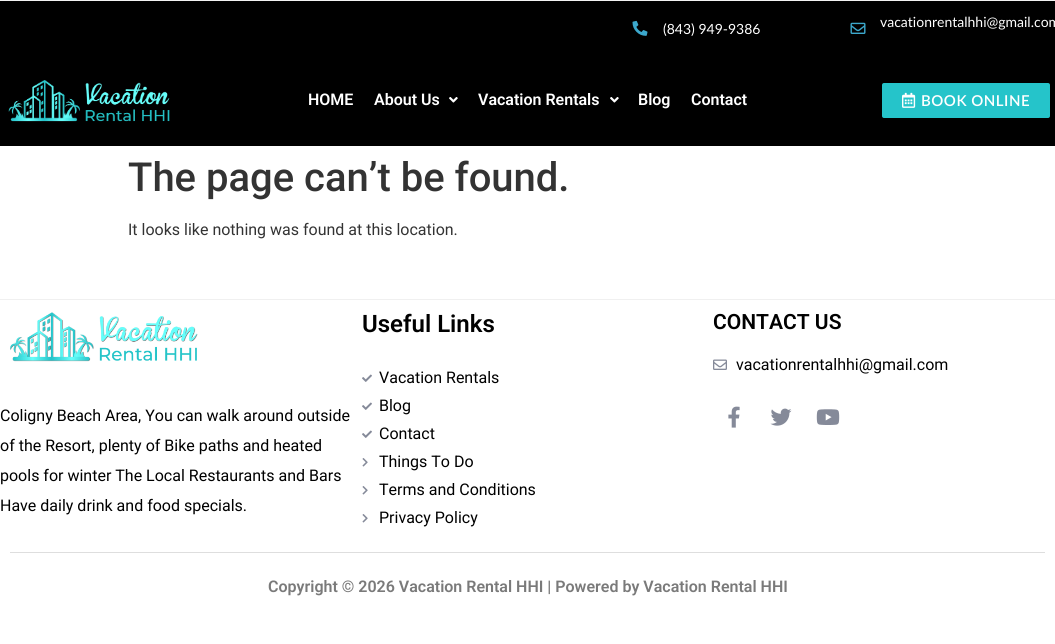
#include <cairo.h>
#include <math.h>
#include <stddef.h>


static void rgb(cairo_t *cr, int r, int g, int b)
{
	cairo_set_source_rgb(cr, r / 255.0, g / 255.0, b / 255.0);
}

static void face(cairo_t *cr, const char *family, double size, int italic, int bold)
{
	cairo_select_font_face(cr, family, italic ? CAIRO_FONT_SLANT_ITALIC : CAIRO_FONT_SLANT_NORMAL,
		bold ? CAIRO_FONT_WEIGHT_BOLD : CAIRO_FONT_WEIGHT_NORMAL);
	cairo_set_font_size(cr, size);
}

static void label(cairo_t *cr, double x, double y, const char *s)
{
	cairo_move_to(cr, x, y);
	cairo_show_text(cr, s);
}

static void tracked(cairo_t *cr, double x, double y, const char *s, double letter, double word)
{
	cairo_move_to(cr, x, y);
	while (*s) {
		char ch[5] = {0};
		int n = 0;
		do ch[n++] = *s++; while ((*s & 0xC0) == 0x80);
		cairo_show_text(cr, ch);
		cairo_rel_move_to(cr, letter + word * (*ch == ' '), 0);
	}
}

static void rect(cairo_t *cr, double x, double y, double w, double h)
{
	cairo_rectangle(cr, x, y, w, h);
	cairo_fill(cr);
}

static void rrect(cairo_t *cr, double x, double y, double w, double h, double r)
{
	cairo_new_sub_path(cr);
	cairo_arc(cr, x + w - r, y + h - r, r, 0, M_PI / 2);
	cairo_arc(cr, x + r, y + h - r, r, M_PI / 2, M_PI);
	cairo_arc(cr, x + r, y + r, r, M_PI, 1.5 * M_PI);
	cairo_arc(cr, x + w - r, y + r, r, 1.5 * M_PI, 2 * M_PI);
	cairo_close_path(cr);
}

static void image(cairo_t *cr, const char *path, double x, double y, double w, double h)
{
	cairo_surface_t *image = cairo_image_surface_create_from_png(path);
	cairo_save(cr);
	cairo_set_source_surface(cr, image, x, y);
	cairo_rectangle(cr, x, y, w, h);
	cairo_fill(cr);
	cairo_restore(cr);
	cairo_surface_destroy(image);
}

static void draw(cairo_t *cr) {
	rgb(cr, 255, 255, 255);
	cairo_paint(cr);
	rgb(cr, 242, 242, 242);
	rect(cr, 0, 0, 1055, 1);
	rgb(cr, 0, 0, 0);
	rect(cr, 0, 1, 1055, 145);
	image(cr, "image0.png", 632, 20, 16, 16);
	face(cr, "Lato", 14, 0, 0);
	rgb(cr, 255, 255, 255);
	label(cr, 663, 34, "(843) 949-9386");
	image(cr, "image1.png", 850, 22, 16, 12);
	label(cr, 880, 27, "vacationrentalhhi@gmail.com");
	image(cr, "image2.png", 8, 80, 162, 42);
	face(cr, "Roboto SemiBold", 16, 0, 0);
	label(cr, 308, 105, "HOME");
	label(cr, 374, 105, "About Us");
	image(cr, "image3.png", 449, 97, 9, 6);
	label(cr, 478, 105, "Vacation Rentals");
	image(cr, "image3.png", 610, 97, 9, 6);
	label(cr, 638, 105, "Blog");
	label(cr, 691, 105, "Contact");
	rgb(cr, 37, 196, 202);
	rrect(cr, 882, 83, 168, 35, 2);
	cairo_fill(cr);
	image(cr, "image4.png", 902, 92, 14, 16);
	face(cr, "Lato SemiBold", 15, 0, 0);
	rgb(cr, 255, 255, 255);
	tracked(cr, 921, 106, "BOOK ONLINE", 0.5, 0);
	face(cr, "Roboto Medium", 40, 0, 0);
	rgb(cr, 51, 51, 51);
	label(cr, 128, 191, "The page can’t be found.");
	face(cr, "Roboto", 16, 0, 0);
	label(cr, 128, 235, "It looks like nothing was found at this location.");
	rgb(cr, 240, 240, 240);
	rect(cr, 0, 299, 1055, 1);
	face(cr, "Roboto SemiBold", 24, 0, 0);
	rgb(cr, 0, 0, 0);
	label(cr, 362, 332, "Useful Links");
	image(cr, "image5.png", 362, 374, 10, 8);
	face(cr, "Roboto", 16, 0, 0);
	label(cr, 379, 383, "Vacation Rentals");
	image(cr, "image5.png", 362, 402, 10, 8);
	label(cr, 379, 411, "Blog");
	image(cr, "image5.png", 362, 430, 10, 8);
	label(cr, 379, 439, "Contact");
	image(cr, "image6.png", 362, 458, 6, 9);
	label(cr, 379, 467, "Things To Do");
	image(cr, "image6.png", 362, 486, 6, 9);
	label(cr, 379, 495, "Terms and Conditions");
	image(cr, "image6.png", 362, 514, 6, 9);
	label(cr, 379, 523, "Privacy Policy");
	face(cr, "Roboto SemiBold", 21, 0, 0);
	label(cr, 713, 329, "CONTACT US");
	image(cr, "image7.png", 713, 359, 14, 11);
	face(cr, "Roboto", 16, 0, 0);
	label(cr, 736, 370, "vacationrentalhhi@gmail.com");
	image(cr, "image8.png", 728, 406, 12, 22);
	image(cr, "image9.png", 770, 408, 22, 18);
	image(cr, "image10.png", 816, 409, 24, 16);
	image(cr, "image11.png", 10, 312, 188, 50);
	label(cr, 0, 421, "Coligny Beach Area, You can walk around outside");
	label(cr, 0, 451, "of the Resort, plenty of Bike paths and heated");
	label(cr, 0, 481, "pools for winter The Local Restaurants and Bars");
	label(cr, 0, 511, "Have daily drink and food specials.");
	rgb(cr, 222, 222, 222);
	rect(cr, 10, 552, 1035, 1);
	face(cr, "Roboto SemiBold", 16, 0, 0);
	rgb(cr, 122, 122, 122);
	label(cr, 268, 592, "Copyright © 2026 Vacation Rental HHI | Powered by Vacation Rental HHI");
}

int main(void) {
	cairo_surface_t *surface = cairo_image_surface_create(CAIRO_FORMAT_RGB24, 1055, 644);
	cairo_t *cr = cairo_create(surface);
	cairo_font_options_t *options = cairo_font_options_create();
	cairo_font_options_set_hint_metrics(options, CAIRO_HINT_METRICS_OFF);
	cairo_font_options_set_hint_style(options, CAIRO_HINT_STYLE_NONE);
	cairo_set_font_options(cr, options);
	cairo_set_miter_limit(cr, 4);
	draw(cr);
	cairo_surface_write_to_png(surface, "render.png");
	cairo_font_options_destroy(options);
	cairo_destroy(cr);
	cairo_surface_destroy(surface);
	return 0;
}
